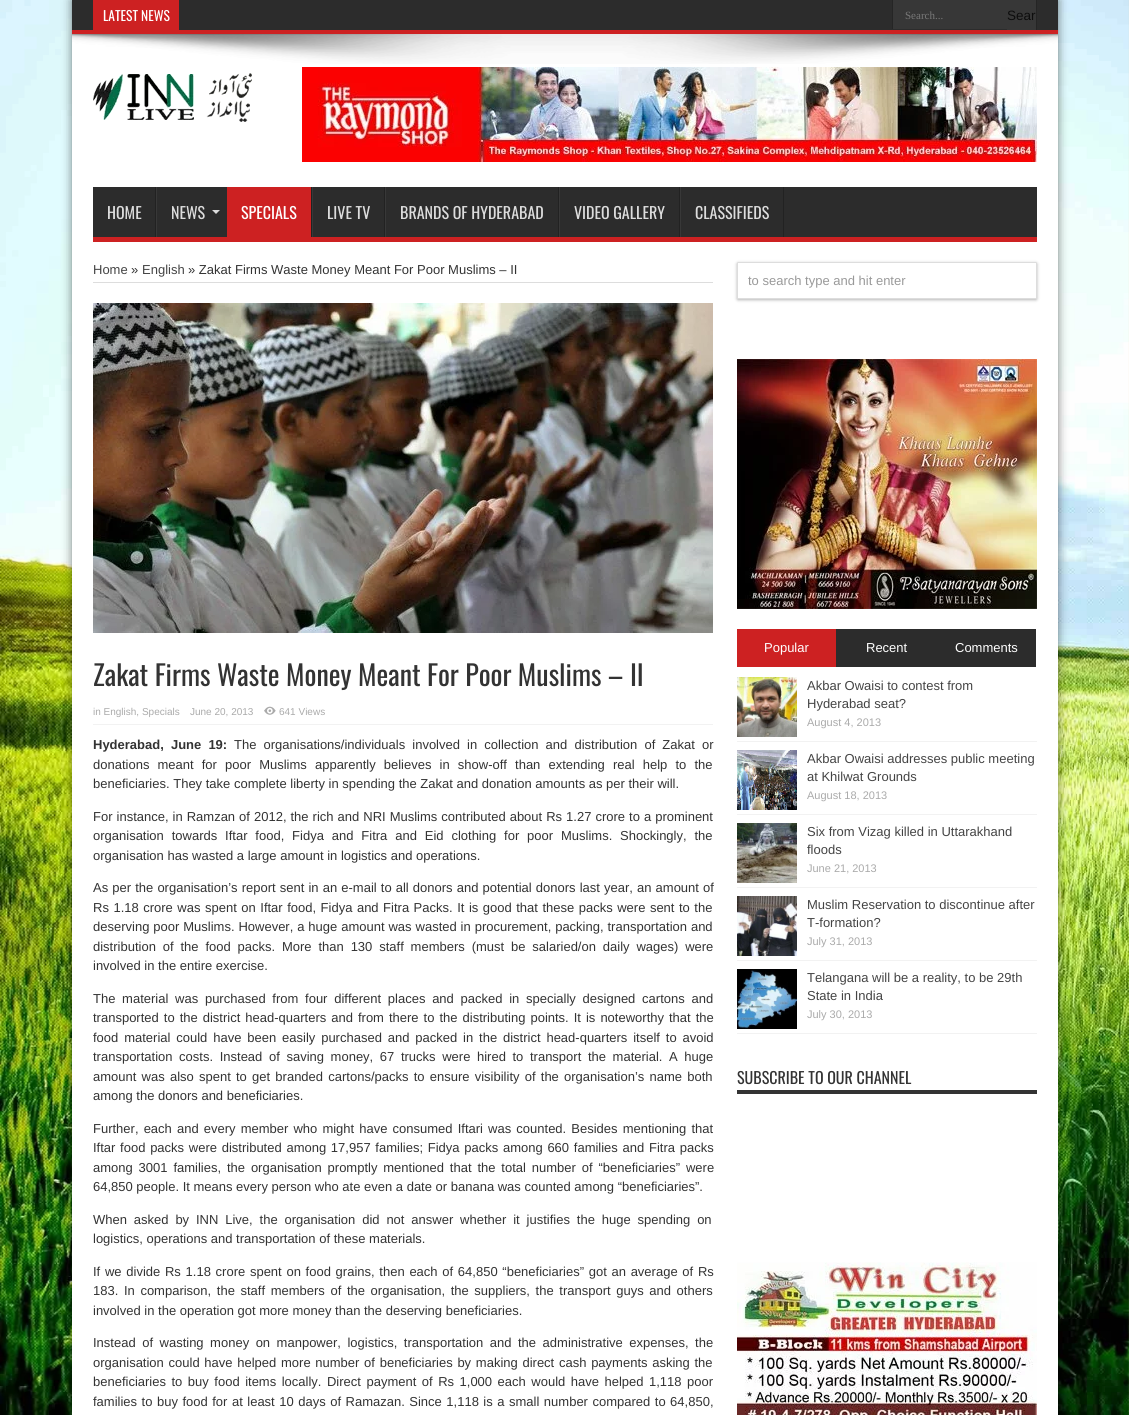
#include <cairo.h>
#include <math.h>
#include <stddef.h>


static void rgb(cairo_t *cr, int r, int g, int b)
{
	cairo_set_source_rgb(cr, r / 255.0, g / 255.0, b / 255.0);
}

static void face(cairo_t *cr, const char *family, double size, int italic, int bold)
{
	cairo_select_font_face(cr, family, italic ? CAIRO_FONT_SLANT_ITALIC : CAIRO_FONT_SLANT_NORMAL,
		bold ? CAIRO_FONT_WEIGHT_BOLD : CAIRO_FONT_WEIGHT_NORMAL);
	cairo_set_font_size(cr, size);
}

static void label(cairo_t *cr, double x, double y, const char *s)
{
	cairo_move_to(cr, x, y);
	cairo_show_text(cr, s);
}

static void tracked(cairo_t *cr, double x, double y, const char *s, double letter, double word)
{
	cairo_move_to(cr, x, y);
	while (*s) {
		char ch[5] = {0};
		int n = 0;
		do ch[n++] = *s++; while ((*s & 0xC0) == 0x80);
		cairo_show_text(cr, ch);
		cairo_rel_move_to(cr, letter + word * (*ch == ' '), 0);
	}
}

static void rect(cairo_t *cr, double x, double y, double w, double h)
{
	cairo_rectangle(cr, x, y, w, h);
	cairo_fill(cr);
}

static void rrect(cairo_t *cr, double x, double y, double w, double h, double r)
{
	cairo_new_sub_path(cr);
	cairo_arc(cr, x + w - r, y + h - r, r, 0, M_PI / 2);
	cairo_arc(cr, x + r, y + h - r, r, M_PI / 2, M_PI);
	cairo_arc(cr, x + r, y + r, r, M_PI, 1.5 * M_PI);
	cairo_arc(cr, x + w - r, y + r, r, 1.5 * M_PI, 2 * M_PI);
	cairo_close_path(cr);
}

static void soft_shadow(cairo_t *cr, double x, double y, double w, double h, double r, double blur, double alpha)
{
	cairo_push_group_with_content(cr, CAIRO_CONTENT_ALPHA);
	cairo_set_operator(cr, CAIRO_OPERATOR_SOURCE);
	for (int i = 15; i >= -15 && fmin(w, h) + blur * i / 3 > 0; i -= 2) {
		double e = blur * i / 6;
		cairo_set_source_rgba(cr, 0, 0, 0, alpha * erfc((i - 1) / 8.5) / 2);
		rrect(cr, x - e, y - e, w + 2 * e, h + 2 * e, fmax(0, fmin(r + e + blur * .6, fmin(w, h) / 2 + e)));
		cairo_fill(cr);
	}
	cairo_pattern_t *soft = cairo_pop_group(cr);
	cairo_mask(cr, soft);
	cairo_pattern_destroy(soft);
}

static void image(cairo_t *cr, const char *path, double x, double y, double w, double h)
{
	cairo_surface_t *image = cairo_image_surface_create_from_png(path);
	cairo_save(cr);
	cairo_set_source_surface(cr, image, x, y);
	cairo_rectangle(cr, x, y, w, h);
	cairo_fill(cr);
	cairo_restore(cr);
	cairo_surface_destroy(image);
}

static void draw(cairo_t *cr) {
	rgb(cr, 255, 255, 255);
	cairo_paint(cr);
	image(cr, "image0.png", 1128, 0, 1, 1415);
	image(cr, "image1.png", 0, 0, 1129, 1415);
	rgb(cr, 0, 0, 0);
	soft_shadow(cr, 72, 0, 986, 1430, 0, 5, 0.5);
	rgb(cr, 255, 255, 255);
	rect(cr, 72, 34, 986, 1381);
	rgb(cr, 44, 44, 44);
	rect(cr, 72, 0, 986, 30);
	rgb(cr, 205, 33, 34);
	rect(cr, 72, 30, 986, 4);
	rect(cr, 93, 0, 86, 30);
	face(cr, "Oswald", 13.5, 0, 0);
	rgb(cr, 255, 255, 255);
	label(cr, 103, 21, "LATEST NEWS");
	rgb(cr, 55, 55, 55);
	rect(cr, 893, 0, 114, 29);
	rgb(cr, 37, 37, 37);
	rect(cr, 892, 0, 1, 29);
	face(cr, "Liberation Serif", 11, 0, 0);
	rgb(cr, 120, 120, 120);
	label(cr, 905, 19, "Search...");
	rgb(cr, 55, 55, 55);
	rect(cr, 1007, 0, 29, 30);
	rgb(cr, 37, 37, 37);
	rect(cr, 1036, 0, 1, 30);
	face(cr, "Liberation Sans", 13.5, 0, 0);
	rgb(cr, 13, 13, 13);
	label(cr, 1007, 20, "Sear");
	image(cr, "image2.png", 72, 34, 986, 30);
	image(cr, "image3.png", 93, 73, 159, 49);
	image(cr, "image4.png", 302, 67, 735, 95);
	rgb(cr, 44, 44, 44);
	rect(cr, 93, 187, 944, 50);
	rgb(cr, 205, 33, 34);
	rect(cr, 93, 237, 944, 5);
	face(cr, "Oswald", 16, 0, 0);
	rgb(cr, 221, 221, 221);
	label(cr, 107, 219, "HOME");
	rgb(cr, 34, 34, 34);
	rect(cr, 155, 187, 1, 50);
	rgb(cr, 56, 56, 56);
	rect(cr, 156, 187, 1, 50);
	rgb(cr, 221, 221, 221);
	label(cr, 171, 219, "NEWS");
	cairo_new_path(cr);
	cairo_move_to(cr, 212, 210);
	cairo_line_to(cr, 220, 210);
	cairo_line_to(cr, 216, 214);
	cairo_close_path(cr);
	cairo_fill(cr);
	rgb(cr, 205, 33, 34);
	rect(cr, 227, 187, 84, 50);
	rgb(cr, 255, 255, 255);
	label(cr, 241, 219, "SPECIALS");
	rgb(cr, 34, 34, 34);
	rect(cr, 311, 187, 1, 50);
	rgb(cr, 56, 56, 56);
	rect(cr, 312, 187, 1, 50);
	rgb(cr, 221, 221, 221);
	label(cr, 327, 219, "LIVE TV");
	rgb(cr, 34, 34, 34);
	rect(cr, 384, 187, 1, 50);
	rgb(cr, 56, 56, 56);
	rect(cr, 385, 187, 1, 50);
	rgb(cr, 221, 221, 221);
	label(cr, 400, 219, "BRANDS OF HYDERABAD");
	rgb(cr, 34, 34, 34);
	rect(cr, 558, 187, 1, 50);
	rgb(cr, 56, 56, 56);
	rect(cr, 559, 187, 1, 50);
	rgb(cr, 221, 221, 221);
	label(cr, 574, 219, "VIDEO GALLERY");
	rgb(cr, 34, 34, 34);
	rect(cr, 679, 187, 1, 50);
	rgb(cr, 56, 56, 56);
	rect(cr, 680, 187, 1, 50);
	rgb(cr, 221, 221, 221);
	label(cr, 695, 219, "CLASSIFIEDS");
	rgb(cr, 34, 34, 34);
	rect(cr, 783, 187, 1, 50);
	rgb(cr, 221, 221, 221);
	rect(cr, 93, 282, 620, 1);
	face(cr, "Liberation Sans", 13, 0, 0);
	rgb(cr, 68, 68, 68);
	label(cr, 93, 274, "Home");
	rgb(cr, 51, 51, 51);
	label(cr, 131, 274, "»");
	rgb(cr, 68, 68, 68);
	label(cr, 142, 274, "English");
	rgb(cr, 51, 51, 51);
	label(cr, 188, 274, "» Zakat Firms Waste Money Meant For Poor Muslims – II");
	image(cr, "image5.png", 93, 303, 620, 330);
	face(cr, "Oswald", 28, 0, 0);
	label(cr, 93, 686, "Zakat Firms Waste Money Meant For Poor Muslims – II");
	rgb(cr, 242, 242, 242);
	rect(cr, 93, 724, 620, 1);
	face(cr, "Liberation Sans", 10, 0, 0);
	rgb(cr, 170, 170, 170);
	label(cr, 93, 715, "in English, Specials");
	label(cr, 190, 715, "June 20, 2013");
	image(cr, "image6.png", 264, 706, 12, 9);
	label(cr, 279, 715, "641 Views");
	face(cr, "Liberation Sans", 13, 0, 1);
	rgb(cr, 51, 51, 51);
	tracked(cr, 93, 749, "Hyderabad, June 19:", 0, 3.5);
	face(cr, "Liberation Sans", 13, 0, 0);
	tracked(cr, 234, 749, "The organisations/individuals involved in collection and distribution of Zakat or", 0, 3.5);
	tracked(cr, 93, 769, "donations meant for poor Muslims apparently believes in show-off than extending real help to the", 0, 4.5);
	label(cr, 93, 788, "beneficiaries. They take complete liberty in spending the Zakat and donation amounts as per their will.");
	tracked(cr, 93, 821, "For instance, in Ramzan of 2012, the rich and NRI Muslims contributed about Rs 1.27 crore to a prominent", 0, 0.4);
	tracked(cr, 93, 840, "organisation towards Iftar food, Fidya and Fitra and Eid clothing for poor Muslims. Shockingly, the", 0, 4.25);
	label(cr, 93, 860, "organisation has wasted a large amount in logistics and operations.");
	tracked(cr, 93, 892, "As per the organisation’s report sent in an e-mail to all donors and potential donors last year, an amount of", 0, 0.5);
	tracked(cr, 93, 912, "Rs 1.18 crore was spent on Iftar food, Fidya and Fitra Packs. It is good that these packs were sent to the", 0, 0.9);
	tracked(cr, 93, 931, "deserving poor Muslims. However, a huge amount was wasted in procurement, packing, transportation and", 0, 0.3);
	tracked(cr, 93, 951, "distribution of the food packs. More than 130 staff members (must be salaried/on daily wages) were", 0, 3.25);
	label(cr, 93, 970, "involved in the entire exercise.");
	tracked(cr, 93, 1003, "The material was purchased from four different places and packed in specially designed cartons and", 0, 3.1);
	tracked(cr, 93, 1022, "transported to the district head-quarters and from there to the distributing points. It is noteworthy that the", 0, 1.4);
	tracked(cr, 93, 1042, "food material could have been easily purchased and packed in the district head-quarters itself to avoid", 0, 2.25);
	tracked(cr, 93, 1061, "transportation costs. Instead of saving money, 67 trucks were hired to transport the material. A huge", 0, 3);
	tracked(cr, 93, 1081, "amount was also spent to get branded cartons/packs to ensure visibility of the organisation’s name both", 0, 1.6);
	label(cr, 93, 1100, "among the donors and beneficiaries.");
	tracked(cr, 93, 1133, "Further, each and every member who might have consumed Iftari was counted. Besides mentioning that", 0, 1.5);
	tracked(cr, 93, 1152, "Iftar food packs were distributed among 17,957 families; Fidya packs among 660 families and Fitra packs", 0, 1.1);
	tracked(cr, 93, 1172, "among 3001 families, the organisation promptly mentioned that the total number of “beneficiaries” were", 0, 2.25);
	label(cr, 93, 1191, "64,850 people. It means every person who ate even a date or banana was counted among “beneficiaries”.");
	tracked(cr, 93, 1224, "When asked by INN Live, the organisation did not answer whether it justifies the huge spending on", 0, 3.25);
	label(cr, 93, 1243, "logistics, operations and transportation of these materials.");
	tracked(cr, 93, 1276, "If we divide Rs 1.18 crore spent on food grains, then each of 64,850 “beneficiaries” got an average of Rs", 0, 1.1);
	tracked(cr, 93, 1295, "183. In comparison, the staff members of the organisation, the suppliers, the transport guys and others", 0, 2);
	label(cr, 93, 1315, "involved in the operation got more money than the deserving beneficiaries.");
	tracked(cr, 93, 1347, "Instead of wasting money on manpower, logistics, transportation and the administrative expenses, the", 0, 2.9);
	tracked(cr, 93, 1367, "organisation could have helped more number of beneficiaries by making direct cash payments asking the", 0, 1.1);
	tracked(cr, 93, 1386, "beneficiaries to buy food items locally. Direct payment of Rs 1,000 each would have helped 1,118 poor", 0, 1.9);
	tracked(cr, 93, 1406, "families to buy food for at least 10 days of Ramazan. Since 1,118 is a small number compared to 64,850,", 0, 0.9);
	rgb(cr, 181, 181, 181);
	soft_shadow(cr, 737, 263, 300, 37, 1, 1.5, 1);
	rgb(cr, 255, 255, 255);
	rrect(cr, 737.5, 262.5, 299, 36, 0.5);
	cairo_fill_preserve(cr);
	rgb(cr, 221, 221, 221);
	cairo_set_line_width(cr, 1);
	cairo_stroke(cr);
	rgb(cr, 153, 153, 153);
	label(cr, 748, 285, "to search type and hit enter");
	image(cr, "image7.png", 737, 359, 300, 250);
	rgb(cr, 205, 33, 34);
	rect(cr, 737, 629, 99, 38);
	rgb(cr, 255, 255, 255);
	label(cr, 764, 652, "Popular");
	rgb(cr, 44, 44, 44);
	rect(cr, 836, 629, 200, 38);
	rgb(cr, 255, 255, 255);
	label(cr, 866, 652, "Recent");
	label(cr, 955, 652, "Comments");
	rgb(cr, 242, 242, 242);
	rect(cr, 737, 741, 300, 1);
	image(cr, "image8.png", 737, 677, 60, 60);
	rgb(cr, 68, 68, 68);
	label(cr, 807, 690, "Akbar Owaisi to contest from");
	label(cr, 807, 708, "Hyderabad seat?");
	face(cr, "Liberation Sans", 11, 0, 0);
	rgb(cr, 170, 170, 170);
	label(cr, 807, 726, "August 4, 2013");
	rgb(cr, 242, 242, 242);
	rect(cr, 737, 814, 300, 1);
	image(cr, "image9.png", 737, 750, 60, 60);
	face(cr, "Liberation Sans", 13, 0, 0);
	rgb(cr, 68, 68, 68);
	label(cr, 807, 763, "Akbar Owaisi addresses public meeting");
	label(cr, 807, 781, "at Khilwat Grounds");
	face(cr, "Liberation Sans", 11, 0, 0);
	rgb(cr, 170, 170, 170);
	label(cr, 807, 799, "August 18, 2013");
	rgb(cr, 242, 242, 242);
	rect(cr, 737, 887, 300, 1);
	image(cr, "image10.png", 737, 823, 60, 60);
	face(cr, "Liberation Sans", 13, 0, 0);
	rgb(cr, 68, 68, 68);
	label(cr, 807, 836, "Six from Vizag killed in Uttarakhand");
	label(cr, 807, 854, "floods");
	face(cr, "Liberation Sans", 11, 0, 0);
	rgb(cr, 170, 170, 170);
	label(cr, 807, 872, "June 21, 2013");
	rgb(cr, 242, 242, 242);
	rect(cr, 737, 960, 300, 1);
	image(cr, "image11.png", 737, 896, 60, 60);
	face(cr, "Liberation Sans", 13, 0, 0);
	rgb(cr, 68, 68, 68);
	label(cr, 807, 909, "Muslim Reservation to discontinue after");
	label(cr, 807, 927, "T-formation?");
	face(cr, "Liberation Sans", 11, 0, 0);
	rgb(cr, 170, 170, 170);
	label(cr, 807, 945, "July 31, 2013");
	rgb(cr, 242, 242, 242);
	rect(cr, 737, 1033, 300, 1);
	image(cr, "image12.png", 737, 969, 60, 60);
	face(cr, "Liberation Sans", 13, 0, 0);
	rgb(cr, 68, 68, 68);
	label(cr, 807, 982, "Telangana will be a reality, to be 29th");
	label(cr, 807, 1000, "State in India");
	face(cr, "Liberation Sans", 11, 0, 0);
	rgb(cr, 170, 170, 170);
	label(cr, 807, 1018, "July 30, 2013");
	rgb(cr, 51, 51, 51);
	rect(cr, 737, 1090, 300, 4);
	face(cr, "Oswald", 16, 0, 0);
	label(cr, 737, 1084, "SUBSCRIBE TO OUR CHANNEL");
	image(cr, "image13.png", 737, 1262, 300, 153);
}

int main(void) {
	cairo_surface_t *surface = cairo_image_surface_create(CAIRO_FORMAT_RGB24, 1129, 1415);
	cairo_t *cr = cairo_create(surface);
	cairo_font_options_t *options = cairo_font_options_create();
	cairo_font_options_set_hint_metrics(options, CAIRO_HINT_METRICS_OFF);
	cairo_font_options_set_hint_style(options, CAIRO_HINT_STYLE_NONE);
	cairo_set_font_options(cr, options);
	cairo_set_miter_limit(cr, 4);
	draw(cr);
	cairo_surface_write_to_png(surface, "render.png");
	cairo_font_options_destroy(options);
	cairo_destroy(cr);
	cairo_surface_destroy(surface);
	return 0;
}
